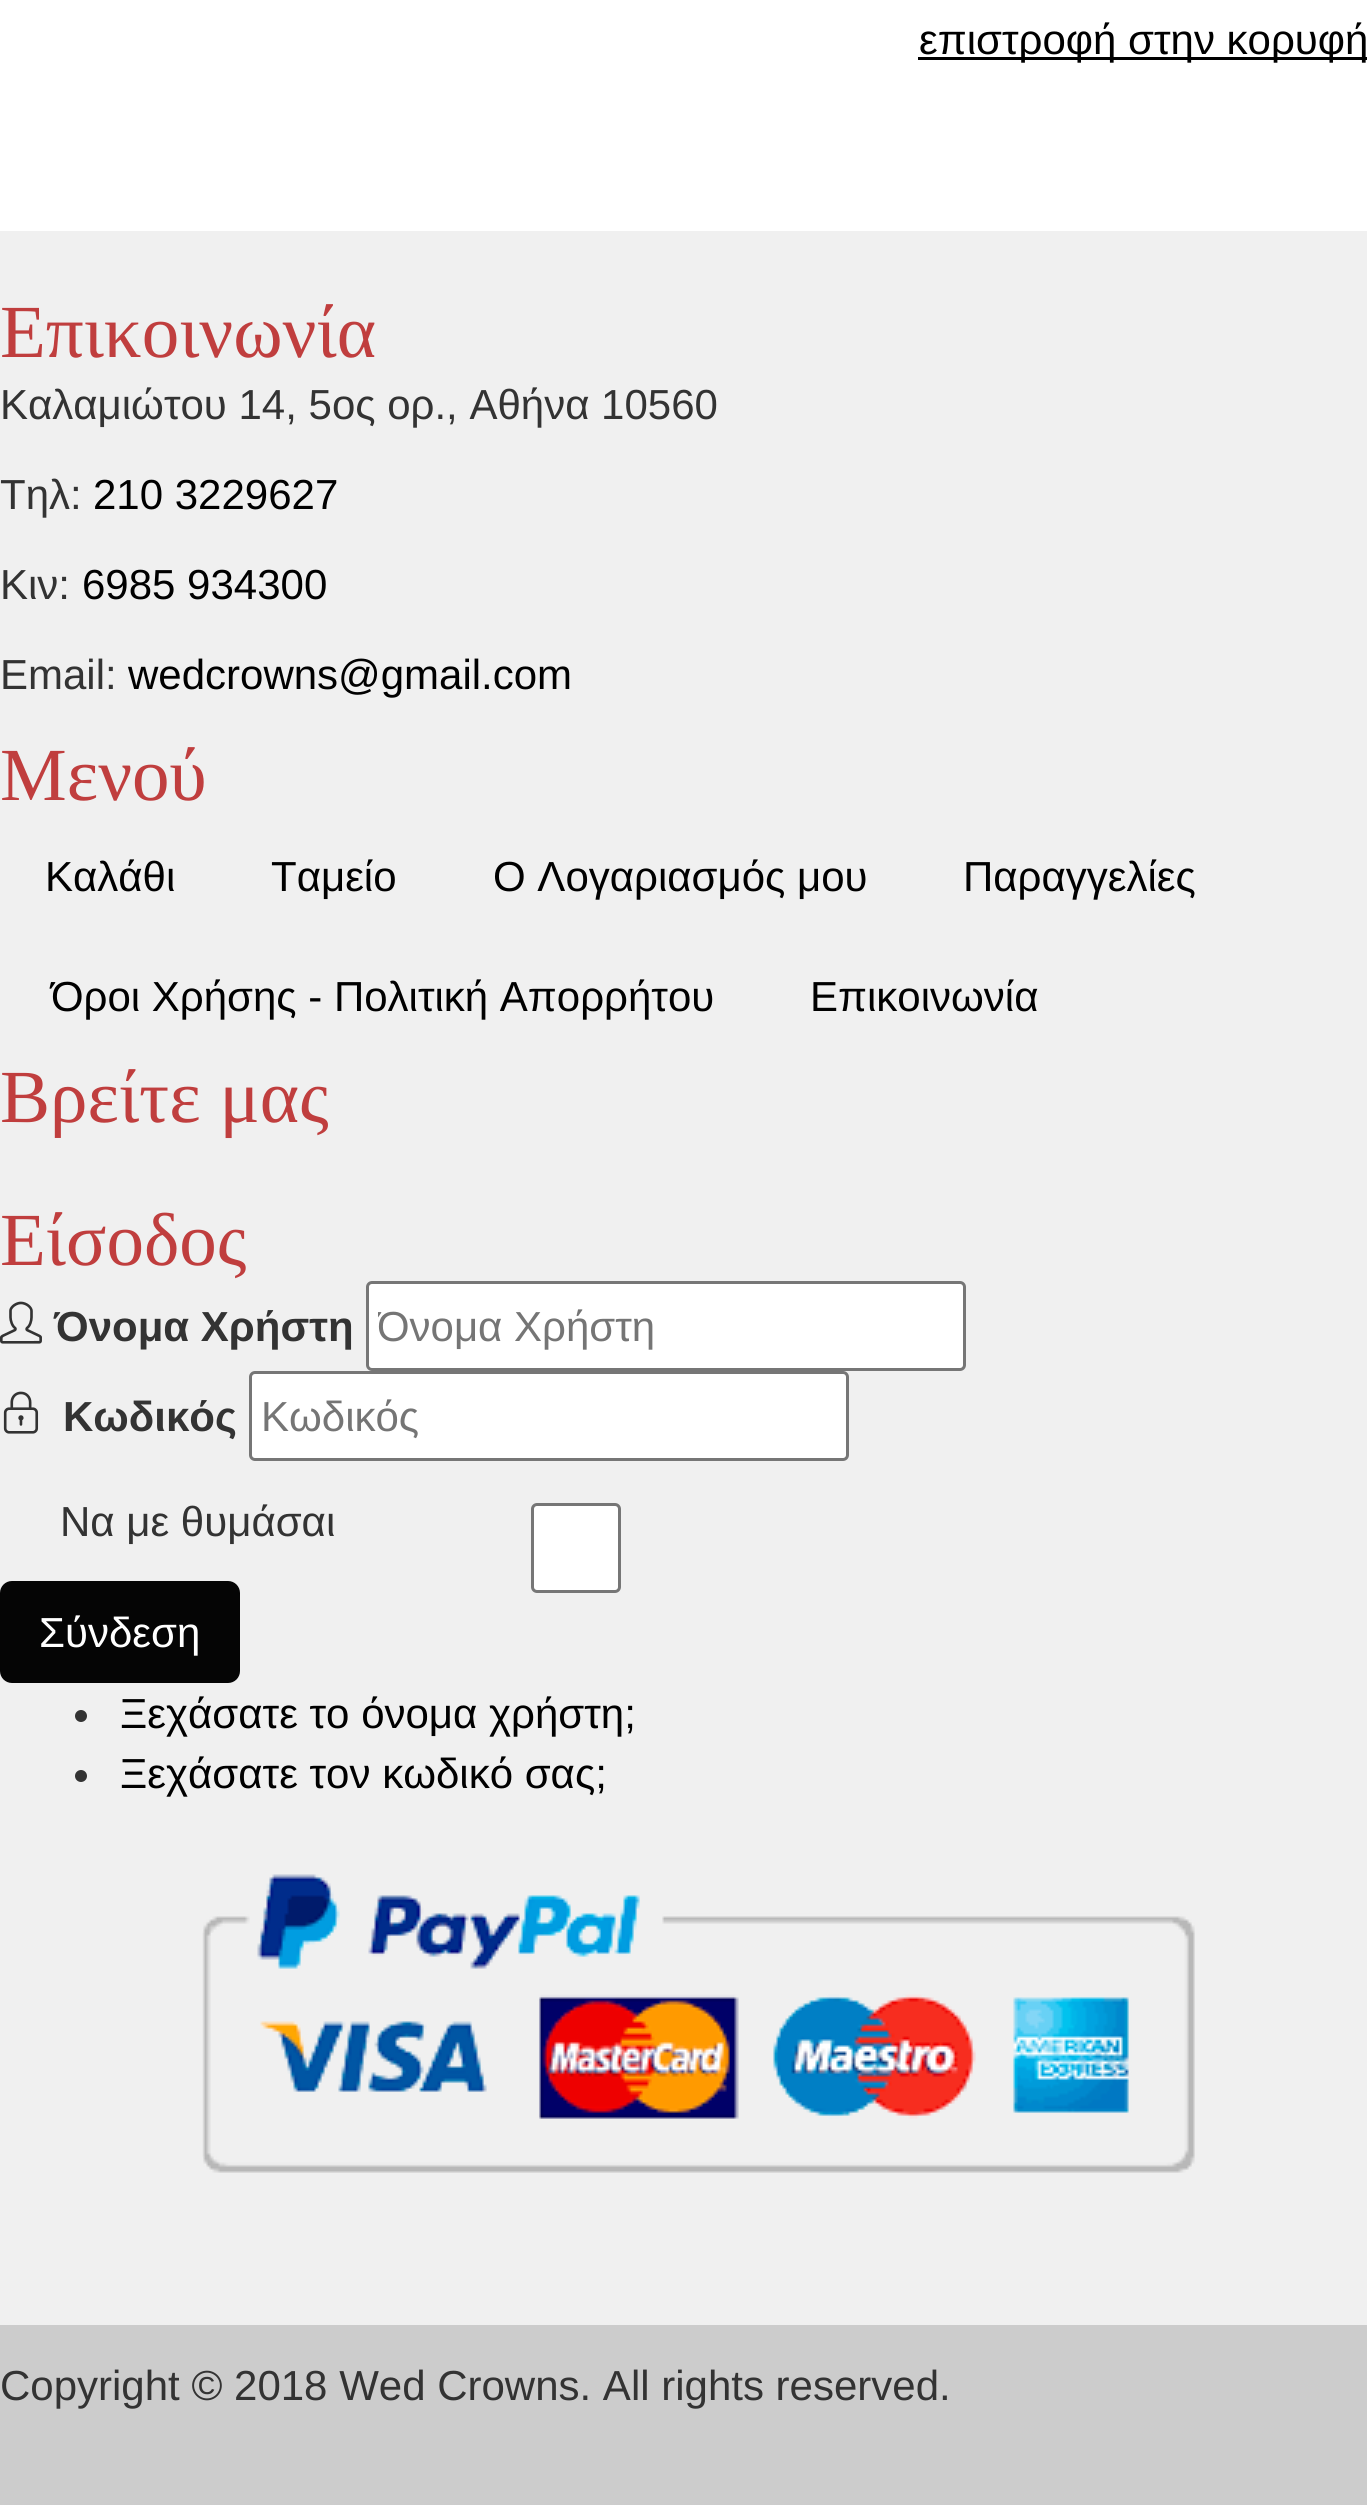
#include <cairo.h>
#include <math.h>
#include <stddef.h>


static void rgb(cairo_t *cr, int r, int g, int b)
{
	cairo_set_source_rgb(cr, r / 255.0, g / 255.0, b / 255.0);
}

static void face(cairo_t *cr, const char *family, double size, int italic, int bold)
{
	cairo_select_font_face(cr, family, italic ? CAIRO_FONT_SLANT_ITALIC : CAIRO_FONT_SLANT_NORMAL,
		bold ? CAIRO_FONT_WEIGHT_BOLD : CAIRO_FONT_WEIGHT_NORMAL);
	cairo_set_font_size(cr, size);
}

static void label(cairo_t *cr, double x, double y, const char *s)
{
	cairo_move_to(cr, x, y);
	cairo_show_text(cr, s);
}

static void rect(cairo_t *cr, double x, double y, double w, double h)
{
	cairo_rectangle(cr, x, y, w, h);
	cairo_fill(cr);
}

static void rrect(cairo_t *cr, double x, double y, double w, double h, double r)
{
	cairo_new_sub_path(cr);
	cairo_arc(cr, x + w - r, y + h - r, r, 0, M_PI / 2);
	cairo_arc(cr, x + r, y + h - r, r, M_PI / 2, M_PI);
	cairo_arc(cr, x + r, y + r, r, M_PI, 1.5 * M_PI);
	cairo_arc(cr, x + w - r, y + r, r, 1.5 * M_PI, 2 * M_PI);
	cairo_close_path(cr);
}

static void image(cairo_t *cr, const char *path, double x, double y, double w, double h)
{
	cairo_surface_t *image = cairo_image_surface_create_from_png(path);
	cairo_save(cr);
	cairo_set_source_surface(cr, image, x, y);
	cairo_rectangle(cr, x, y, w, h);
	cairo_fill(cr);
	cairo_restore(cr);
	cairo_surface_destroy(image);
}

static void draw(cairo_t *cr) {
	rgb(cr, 255, 255, 255);
	cairo_paint(cr);
	rgb(cr, 0, 0, 0);
	rect(cr, 918, 57, 449, 3);
	face(cr, "Liberation Sans", 42, 0, 0);
	label(cr, 919, 54, "επιστροφή στην κορυφή");
	rgb(cr, 240, 240, 240);
	rect(cr, 0, 231, 1367, 2094);
	face(cr, "Liberation Serif", 75, 0, 0);
	rgb(cr, 192, 62, 62);
	label(cr, 0, 357, "Επικοινωνία");
	face(cr, "Liberation Sans", 42, 0, 0);
	rgb(cr, 51, 51, 51);
	label(cr, 0, 419, "Καλαμιώτου 14, 5ος ορ., Αθήνα 10560");
	label(cr, 0, 509, "Τηλ:");
	rgb(cr, 0, 0, 0);
	label(cr, 93, 509, "210 3229627");
	rgb(cr, 51, 51, 51);
	label(cr, 0, 599, "Κιν:");
	rgb(cr, 0, 0, 0);
	label(cr, 82, 599, "6985 934300");
	rgb(cr, 51, 51, 51);
	label(cr, 0, 689, "Email:");
	rgb(cr, 0, 0, 0);
	label(cr, 128, 689, "wedcrowns@gmail.com");
	face(cr, "Liberation Serif", 75, 0, 0);
	rgb(cr, 192, 62, 62);
	label(cr, 0, 800, "Μενού");
	face(cr, "Liberation Sans", 42, 0, 0);
	rgb(cr, 0, 0, 0);
	label(cr, 45, 891, "Καλάθι");
	label(cr, 271, 891, "Ταμείο");
	label(cr, 493, 891, "Ο Λογαριασμός μου");
	label(cr, 963, 891, "Παραγγελίες");
	label(cr, 51, 1011, "Όροι Χρήσης - Πολιτική Απορρήτου");
	label(cr, 810, 1011, "Επικοινωνία");
	face(cr, "Liberation Serif", 75, 0, 0);
	rgb(cr, 192, 62, 62);
	label(cr, 0, 1122, "Βρείτε μας");
	label(cr, 0, 1265, "Είσοδος");
	image(cr, "image0.png", 0, 1301, 42, 43);
	face(cr, "Liberation Sans", 42, 0, 1);
	rgb(cr, 51, 51, 51);
	label(cr, 54, 1341, "Όνομα Χρήστη");
	rgb(cr, 255, 255, 255);
	rrect(cr, 367.5, 1282.5, 597, 87, 4.5);
	cairo_fill_preserve(cr);
	rgb(cr, 118, 118, 118);
	cairo_set_line_width(cr, 3);
	cairo_stroke(cr);
	cairo_save(cr);
	cairo_rectangle(cr, 378, 1302, 576, 48);
	cairo_clip(cr);
	face(cr, "Liberation Sans", 42, 0, 0);
	rgb(cr, 117, 117, 117);
	label(cr, 377, 1341, "Όνομα Χρήστη");
	cairo_restore(cr);
	image(cr, "image1.png", 3, 1391, 36, 43);
	rgb(cr, 51, 51, 51);
	label(cr, 63, 1431, "Κωδικός");
	rgb(cr, 255, 255, 255);
	rrect(cr, 250.5, 1372.5, 597, 87, 4.5);
	cairo_fill_preserve(cr);
	rgb(cr, 118, 118, 118);
	cairo_stroke(cr);
	face(cr, "Liberation Sans", 42, 0, 0);
	rgb(cr, 117, 117, 117);
	label(cr, 261, 1431, "Κωδικός");
	rgb(cr, 51, 51, 51);
	label(cr, 60, 1536, "Να με θυμάσαι");
	rgb(cr, 255, 255, 255);
	rrect(cr, 532.5, 1504.5, 87, 87, 4.5);
	cairo_fill_preserve(cr);
	rgb(cr, 118, 118, 118);
	cairo_stroke(cr);
	rgb(cr, 5, 5, 5);
	rrect(cr, 1.5, 1582.5, 237, 99, 10.5);
	cairo_fill_preserve(cr);
	cairo_stroke(cr);
	rgb(cr, 255, 255, 255);
	label(cr, 39, 1647, "Σύνδεση");
	rgb(cr, 51, 51, 51);
	cairo_new_path(cr);
	cairo_arc(cr, 81, 1716, 6, 0, 2 * M_PI);
	cairo_fill(cr);
	rgb(cr, 0, 0, 0);
	label(cr, 120, 1728, "Ξεχάσατε το όνομα χρήστη;");
	rgb(cr, 51, 51, 51);
	cairo_new_path(cr);
	cairo_arc(cr, 81, 1776, 6, 0, 2 * M_PI);
	cairo_fill(cr);
	rgb(cr, 0, 0, 0);
	label(cr, 120, 1788, "Ξεχάσατε τον κωδικό σας;");
	image(cr, "image2.png", 202, 1874, 993, 299);
	rgb(cr, 204, 204, 204);
	rect(cr, 0, 2325, 1367, 180);
	rgb(cr, 51, 51, 51);
	label(cr, 0, 2400, "Copyright © 2018 Wed Crowns. All rights reserved.");
}

int main(void) {
	cairo_surface_t *surface = cairo_image_surface_create(CAIRO_FORMAT_RGB24, 1367, 2505);
	cairo_t *cr = cairo_create(surface);
	cairo_font_options_t *options = cairo_font_options_create();
	cairo_font_options_set_hint_metrics(options, CAIRO_HINT_METRICS_OFF);
	cairo_font_options_set_hint_style(options, CAIRO_HINT_STYLE_NONE);
	cairo_set_font_options(cr, options);
	cairo_set_miter_limit(cr, 4);
	draw(cr);
	cairo_surface_write_to_png(surface, "render.png");
	cairo_font_options_destroy(options);
	cairo_destroy(cr);
	cairo_surface_destroy(surface);
	return 0;
}
